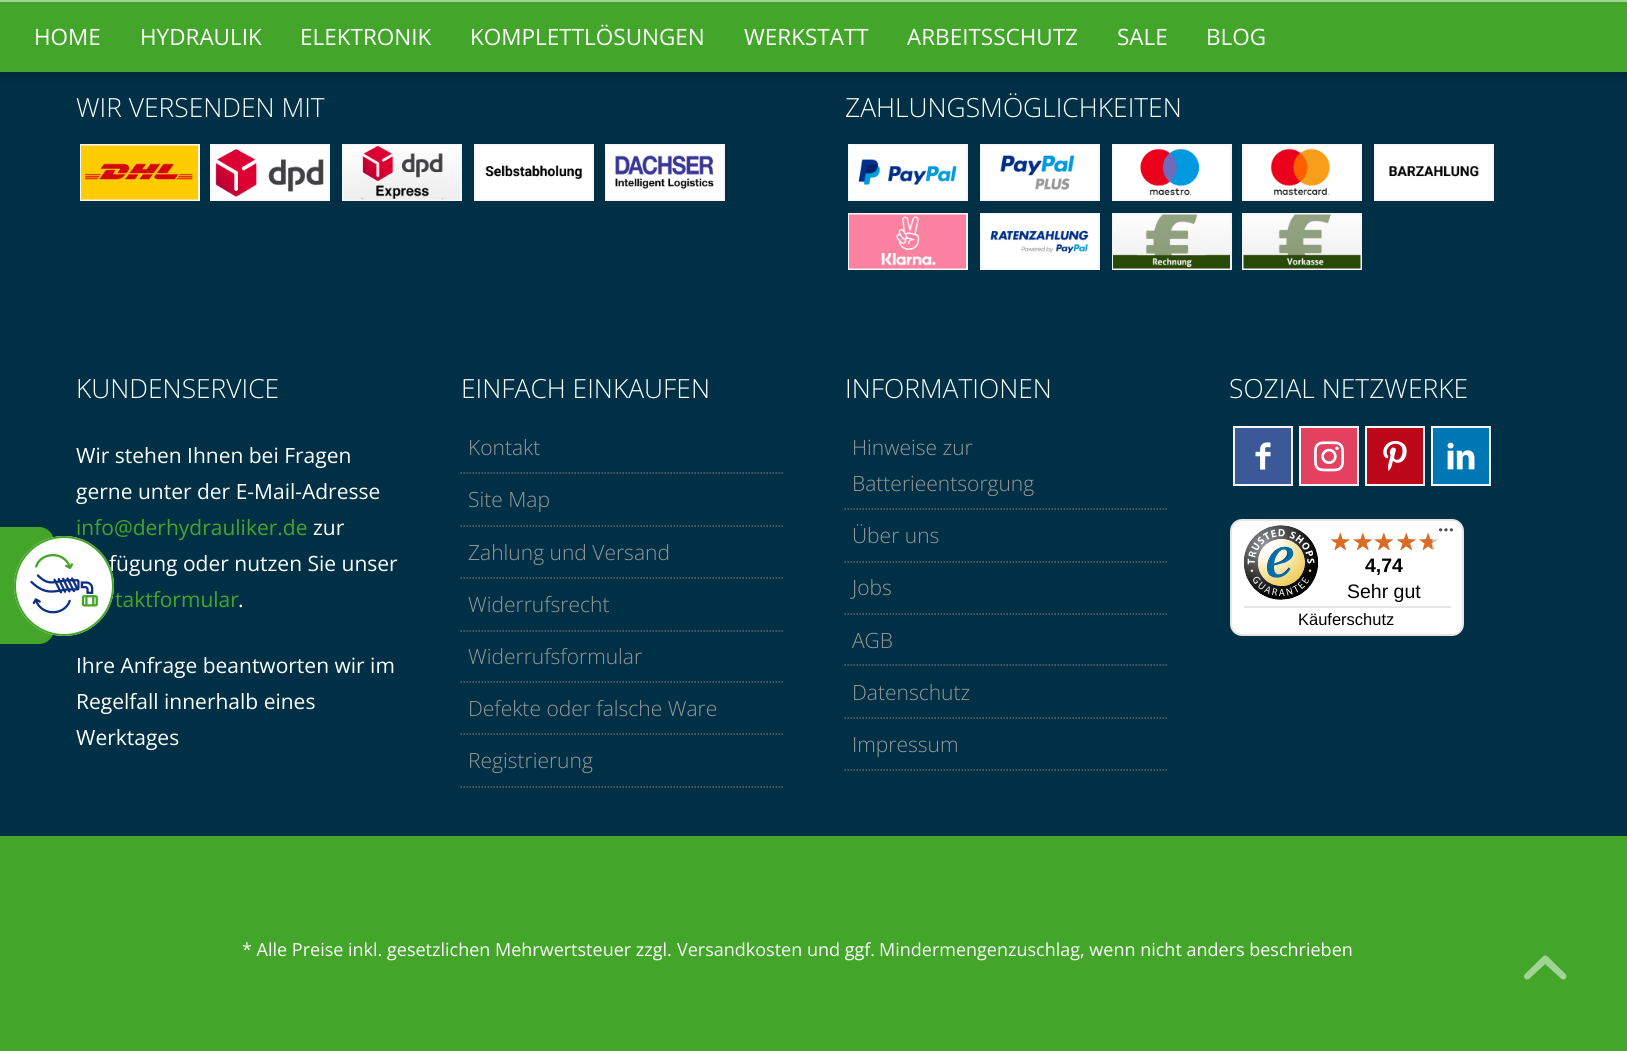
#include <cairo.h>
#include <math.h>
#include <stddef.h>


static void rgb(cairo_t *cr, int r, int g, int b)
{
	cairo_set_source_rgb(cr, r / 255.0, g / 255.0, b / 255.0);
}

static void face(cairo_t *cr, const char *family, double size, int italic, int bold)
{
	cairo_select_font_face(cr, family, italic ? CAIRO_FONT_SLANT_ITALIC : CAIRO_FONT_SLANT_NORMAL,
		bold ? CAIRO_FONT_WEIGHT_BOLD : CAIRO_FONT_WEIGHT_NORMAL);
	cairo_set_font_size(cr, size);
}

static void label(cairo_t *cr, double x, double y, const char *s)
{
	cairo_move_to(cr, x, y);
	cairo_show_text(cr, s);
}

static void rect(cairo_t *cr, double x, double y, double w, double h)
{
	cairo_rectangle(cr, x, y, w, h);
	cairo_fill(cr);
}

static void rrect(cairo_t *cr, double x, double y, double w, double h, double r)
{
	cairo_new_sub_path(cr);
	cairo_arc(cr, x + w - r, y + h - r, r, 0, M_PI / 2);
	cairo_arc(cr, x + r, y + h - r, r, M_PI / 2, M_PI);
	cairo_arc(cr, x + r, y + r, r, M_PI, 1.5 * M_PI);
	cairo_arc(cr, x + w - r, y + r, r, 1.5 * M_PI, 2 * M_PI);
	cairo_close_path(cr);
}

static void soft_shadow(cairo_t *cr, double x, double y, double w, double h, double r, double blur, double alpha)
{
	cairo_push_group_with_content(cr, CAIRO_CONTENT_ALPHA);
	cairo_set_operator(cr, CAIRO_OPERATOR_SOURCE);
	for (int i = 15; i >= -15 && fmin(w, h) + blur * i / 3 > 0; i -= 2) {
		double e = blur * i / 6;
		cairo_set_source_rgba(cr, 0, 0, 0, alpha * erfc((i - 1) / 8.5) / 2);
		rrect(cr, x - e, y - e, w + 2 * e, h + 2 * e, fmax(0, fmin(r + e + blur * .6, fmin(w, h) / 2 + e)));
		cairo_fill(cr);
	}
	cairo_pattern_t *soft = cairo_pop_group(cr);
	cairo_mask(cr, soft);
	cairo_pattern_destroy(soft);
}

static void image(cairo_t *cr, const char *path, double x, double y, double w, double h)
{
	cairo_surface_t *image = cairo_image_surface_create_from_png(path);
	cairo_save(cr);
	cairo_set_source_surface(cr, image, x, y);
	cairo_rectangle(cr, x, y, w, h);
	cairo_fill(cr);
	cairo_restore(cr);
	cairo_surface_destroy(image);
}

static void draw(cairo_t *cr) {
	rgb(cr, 0, 48, 70);
	cairo_paint(cr);
	rgb(cr, 0, 0, 0);
	soft_shadow(cr, 0, 2, 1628, 72, 0, 7.5, 0.2);
	rgb(cr, 67, 166, 42);
	rect(cr, 0, 2, 1627, 70);
	rgb(cr, 161, 211, 149);
	rect(cr, 0, 0, 1627, 2);
	face(cr, "Open Sans", 22.5, 0, 0);
	rgb(cr, 255, 255, 255);
	label(cr, 34, 45, "HOME");
	label(cr, 140, 45, "HYDRAULIK");
	label(cr, 300, 45, "ELEKTRONIK");
	label(cr, 470, 45, "KOMPLETTLÖSUNGEN");
	label(cr, 744, 45, "WERKSTATT");
	label(cr, 907, 45, "ARBEITSSCHUTZ");
	label(cr, 1117, 45, "SALE");
	label(cr, 1206, 45, "BLOG");
	face(cr, "Open Sans Light", 26.4, 0, 0);
	label(cr, 76, 117, "WIR VERSENDEN MIT");
	cairo_rectangle(cr, 81, 145, 118, 55);
	rgb(cr, 245, 245, 245);
	cairo_stroke(cr);
	image(cr, "image0.png", 81, 145, 117, 55);
	cairo_rectangle(cr, 211, 145, 118, 55);
	cairo_stroke(cr);
	image(cr, "image1.png", 211, 145, 118, 55);
	cairo_rectangle(cr, 343, 145, 118, 55);
	cairo_stroke(cr);
	image(cr, "image2.png", 343, 145, 118, 55);
	cairo_rectangle(cr, 475, 145, 118, 55);
	cairo_stroke(cr);
	image(cr, "image3.png", 475, 145, 118, 55);
	cairo_rectangle(cr, 606, 145, 118, 55);
	cairo_stroke(cr);
	image(cr, "image4.png", 606, 145, 117, 55);
	rgb(cr, 255, 255, 255);
	label(cr, 845, 117, "ZAHLUNGSMÖGLICHKEITEN");
	cairo_rectangle(cr, 849, 145, 118, 55);
	rgb(cr, 245, 245, 245);
	cairo_stroke(cr);
	image(cr, "image5.png", 849, 145, 117, 55);
	cairo_rectangle(cr, 981, 145, 118, 55);
	cairo_stroke(cr);
	image(cr, "image6.png", 981, 145, 117, 55);
	cairo_rectangle(cr, 1113, 145, 118, 55);
	cairo_stroke(cr);
	image(cr, "image7.png", 1113, 145, 117, 55);
	cairo_rectangle(cr, 1243, 145, 118, 55);
	cairo_stroke(cr);
	image(cr, "image8.png", 1243, 145, 118, 55);
	cairo_rectangle(cr, 1375, 145, 118, 55);
	cairo_stroke(cr);
	image(cr, "image9.png", 1375, 145, 118, 55);
	cairo_rectangle(cr, 849, 214, 118, 55);
	cairo_stroke(cr);
	image(cr, "image10.png", 849, 214, 117, 55);
	cairo_rectangle(cr, 981, 214, 118, 55);
	cairo_stroke(cr);
	image(cr, "image11.png", 981, 214, 117, 55);
	cairo_rectangle(cr, 1113, 214, 118, 55);
	cairo_stroke(cr);
	image(cr, "image12.png", 1113, 214, 117, 55);
	cairo_rectangle(cr, 1243, 214, 118, 55);
	cairo_stroke(cr);
	image(cr, "image13.png", 1243, 214, 118, 55);
	rgb(cr, 255, 255, 255);
	label(cr, 76, 398, "KUNDENSERVICE");
	face(cr, "Open Sans", 21, 0, 0);
	label(cr, 76, 463, "Wir stehen Ihnen bei Fragen");
	label(cr, 76, 499, "gerne unter der E-Mail-Adresse");
	rgb(cr, 67, 166, 42);
	label(cr, 76, 535, "info@derhydrauliker.de");
	rgb(cr, 255, 255, 255);
	label(cr, 313, 535, "zur");
	label(cr, 109, 571, "fügung oder nutzen Sie unser");
	rgb(cr, 67, 166, 42);
	label(cr, 115, 607, "taktformular");
	rgb(cr, 255, 255, 255);
	label(cr, 238, 607, ".");
	label(cr, 76, 673, "Ihre Anfrage beantworten wir im");
	label(cr, 76, 709, "Regelfall innerhalb eines");
	label(cr, 76, 745, "Werktages");
	face(cr, "Open Sans Light", 26.4, 0, 0);
	label(cr, 461, 398, "EINFACH EINKAUFEN");
	cairo_new_path(cr);
	cairo_move_to(cr, 460.5, 473);
	cairo_line_to(cr, 783, 473);
	rgb(cr, 102, 102, 102);
	cairo_set_line_width(cr, 1.5);
	cairo_set_dash(cr, (double[]){1.5, 1.5}, 2, 0);
	cairo_stroke(cr);
	face(cr, "Open Sans Light", 21, 0, 0);
	rgb(cr, 153, 153, 153);
	label(cr, 468, 455, "Kontakt");
	cairo_new_path(cr);
	cairo_move_to(cr, 460.5, 526);
	cairo_line_to(cr, 783, 526);
	rgb(cr, 102, 102, 102);
	cairo_stroke(cr);
	rgb(cr, 153, 153, 153);
	label(cr, 468, 507, "Site Map");
	cairo_new_path(cr);
	cairo_move_to(cr, 460.5, 578);
	cairo_line_to(cr, 783, 578);
	rgb(cr, 102, 102, 102);
	cairo_stroke(cr);
	rgb(cr, 153, 153, 153);
	label(cr, 468, 560, "Zahlung und Versand");
	cairo_new_path(cr);
	cairo_move_to(cr, 460.5, 631);
	cairo_line_to(cr, 783, 631);
	rgb(cr, 102, 102, 102);
	cairo_stroke(cr);
	rgb(cr, 153, 153, 153);
	label(cr, 468, 612, "Widerrufsrecht");
	cairo_new_path(cr);
	cairo_move_to(cr, 460.5, 682);
	cairo_line_to(cr, 783, 682);
	rgb(cr, 102, 102, 102);
	cairo_stroke(cr);
	rgb(cr, 153, 153, 153);
	label(cr, 468, 664, "Widerrufsformular");
	cairo_new_path(cr);
	cairo_move_to(cr, 460.5, 734);
	cairo_line_to(cr, 783, 734);
	rgb(cr, 102, 102, 102);
	cairo_stroke(cr);
	rgb(cr, 153, 153, 153);
	label(cr, 468, 716, "Defekte oder falsche Ware");
	cairo_new_path(cr);
	cairo_move_to(cr, 460.5, 787);
	cairo_line_to(cr, 783, 787);
	rgb(cr, 102, 102, 102);
	cairo_stroke(cr);
	rgb(cr, 153, 153, 153);
	label(cr, 468, 768, "Registrierung");
	face(cr, "Open Sans Light", 26.4, 0, 0);
	rgb(cr, 255, 255, 255);
	label(cr, 845, 398, "INFORMATIONEN");
	cairo_new_path(cr);
	cairo_move_to(cr, 844.5, 509);
	cairo_line_to(cr, 1167, 509);
	rgb(cr, 102, 102, 102);
	cairo_stroke(cr);
	face(cr, "Open Sans Light", 21, 0, 0);
	rgb(cr, 153, 153, 153);
	label(cr, 852, 455, "Hinweise zur");
	label(cr, 852, 491, "Batterieentsorgung");
	cairo_new_path(cr);
	cairo_move_to(cr, 844.5, 562);
	cairo_line_to(cr, 1167, 562);
	rgb(cr, 102, 102, 102);
	cairo_stroke(cr);
	rgb(cr, 153, 153, 153);
	label(cr, 852, 543, "Über uns");
	cairo_new_path(cr);
	cairo_move_to(cr, 844.5, 614);
	cairo_line_to(cr, 1167, 614);
	rgb(cr, 102, 102, 102);
	cairo_stroke(cr);
	rgb(cr, 153, 153, 153);
	label(cr, 852, 595, "Jobs");
	cairo_new_path(cr);
	cairo_move_to(cr, 844.5, 665);
	cairo_line_to(cr, 1167, 665);
	rgb(cr, 102, 102, 102);
	cairo_stroke(cr);
	rgb(cr, 153, 153, 153);
	label(cr, 852, 648, "AGB");
	cairo_new_path(cr);
	cairo_move_to(cr, 844.5, 718);
	cairo_line_to(cr, 1167, 718);
	rgb(cr, 102, 102, 102);
	cairo_stroke(cr);
	rgb(cr, 153, 153, 153);
	label(cr, 852, 700, "Datenschutz");
	cairo_new_path(cr);
	cairo_move_to(cr, 844.5, 770);
	cairo_line_to(cr, 1167, 770);
	rgb(cr, 102, 102, 102);
	cairo_stroke(cr);
	rgb(cr, 153, 153, 153);
	label(cr, 852, 752, "Impressum");
	face(cr, "Open Sans Light", 26.4, 0, 0);
	rgb(cr, 255, 255, 255);
	label(cr, 1229, 398, "SOZIAL NETZWERKE");
	rgb(cr, 59, 89, 153);
	cairo_rectangle(cr, 1234, 427, 58, 58);
	cairo_fill_preserve(cr);
	rgb(cr, 245, 245, 245);
	cairo_set_line_width(cr, 2);
	cairo_set_dash(cr, NULL, 0, 0);
	cairo_stroke(cr);
	image(cr, "image14.png", 1255, 442, 16, 28);
	rgb(cr, 228, 64, 95);
	cairo_rectangle(cr, 1300, 427, 58, 58);
	cairo_fill_preserve(cr);
	rgb(cr, 245, 245, 245);
	cairo_stroke(cr);
	image(cr, "image15.png", 1314, 441, 30, 31);
	rgb(cr, 189, 8, 28);
	cairo_rectangle(cr, 1366, 427, 58, 58);
	cairo_fill_preserve(cr);
	rgb(cr, 245, 245, 245);
	cairo_stroke(cr);
	image(cr, "image16.png", 1383, 441, 24, 30);
	rgb(cr, 0, 119, 181);
	cairo_rectangle(cr, 1432, 427, 58, 58);
	cairo_fill_preserve(cr);
	rgb(cr, 245, 245, 245);
	cairo_stroke(cr);
	image(cr, "image17.png", 1447, 442, 28, 28);
	rgb(cr, 255, 255, 255);
	rrect(cr, 1231, 520, 232, 115, 11);
	cairo_fill_preserve(cr);
	rgb(cr, 229, 229, 229);
	cairo_stroke(cr);
	image(cr, "image18.png", 1439, 528, 14, 4);
	image(cr, "image19.png", 1244, 525, 75, 75);
	image(cr, "image20.png", 1331, 533, 19, 17);
	image(cr, "image21.png", 1353, 533, 19, 17);
	image(cr, "image22.png", 1376, 533, 17, 17);
	image(cr, "image20.png", 1397, 533, 19, 17);
	image(cr, "image21.png", 1419, 533, 19, 17);
	image(cr, "image23.png", 1331, 533, 19, 17);
	image(cr, "image24.png", 1353, 533, 19, 17);
	image(cr, "image25.png", 1374, 533, 19, 17);
	image(cr, "image23.png", 1397, 533, 19, 17);
	image(cr, "image26.png", 1419, 533, 14, 17);
	face(cr, "Liberation Sans", 19.5, 0, 1);
	rgb(cr, 0, 0, 0);
	label(cr, 1365, 572, "4,74");
	face(cr, "Liberation Sans", 19.5, 0, 0);
	label(cr, 1347, 598, "Sehr gut");
	rgb(cr, 229, 229, 229);
	rect(cr, 1244, 606, 207, 2);
	face(cr, "Liberation Sans", 16.5, 0, 0);
	rgb(cr, 0, 0, 0);
	label(cr, 1298, 625, "Käuferschutz");
	rgb(cr, 67, 166, 42);
	rect(cr, 0, 836, 1627, 215);
	face(cr, "Open Sans", 18, 0, 0);
	rgb(cr, 255, 255, 255);
	label(cr, 242, 956, "* Alle Preise inkl. gesetzlichen Mehrwertsteuer zzgl.");
	rgb(cr, 249, 249, 249);
	label(cr, 677, 956, "Versandkosten");
	rgb(cr, 255, 255, 255);
	label(cr, 807, 956, "und ggf.");
	rgb(cr, 249, 249, 249);
	label(cr, 879, 956, "Mindermengenzuschlag");
	rgb(cr, 255, 255, 255);
	label(cr, 1080, 956, ", wenn nicht anders beschrieben");
	rgb(cr, 67, 166, 42);
	rrect(cr, -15, 527, 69, 117, 15);
	cairo_fill(cr);
	rgb(cr, 255, 255, 255);
	cairo_arc(cr, 64, 586, 50, 0, 2 * M_PI);
	cairo_fill(cr);
	image(cr, "image27.png", 30, 554, 68, 60);
	cairo_arc(cr, 64, 586, 49, 0, 2 * M_PI);
	rgb(cr, 67, 166, 42);
	cairo_stroke(cr);
	image(cr, "image28.png", 1524, 955, 43, 25);
}

int main(void) {
	cairo_surface_t *surface = cairo_image_surface_create(CAIRO_FORMAT_RGB24, 1627, 1051);
	cairo_t *cr = cairo_create(surface);
	cairo_font_options_t *options = cairo_font_options_create();
	cairo_font_options_set_hint_metrics(options, CAIRO_HINT_METRICS_OFF);
	cairo_font_options_set_hint_style(options, CAIRO_HINT_STYLE_NONE);
	cairo_set_font_options(cr, options);
	cairo_set_miter_limit(cr, 4);
	draw(cr);
	cairo_surface_write_to_png(surface, "render.png");
	cairo_font_options_destroy(options);
	cairo_destroy(cr);
	cairo_surface_destroy(surface);
	return 0;
}
